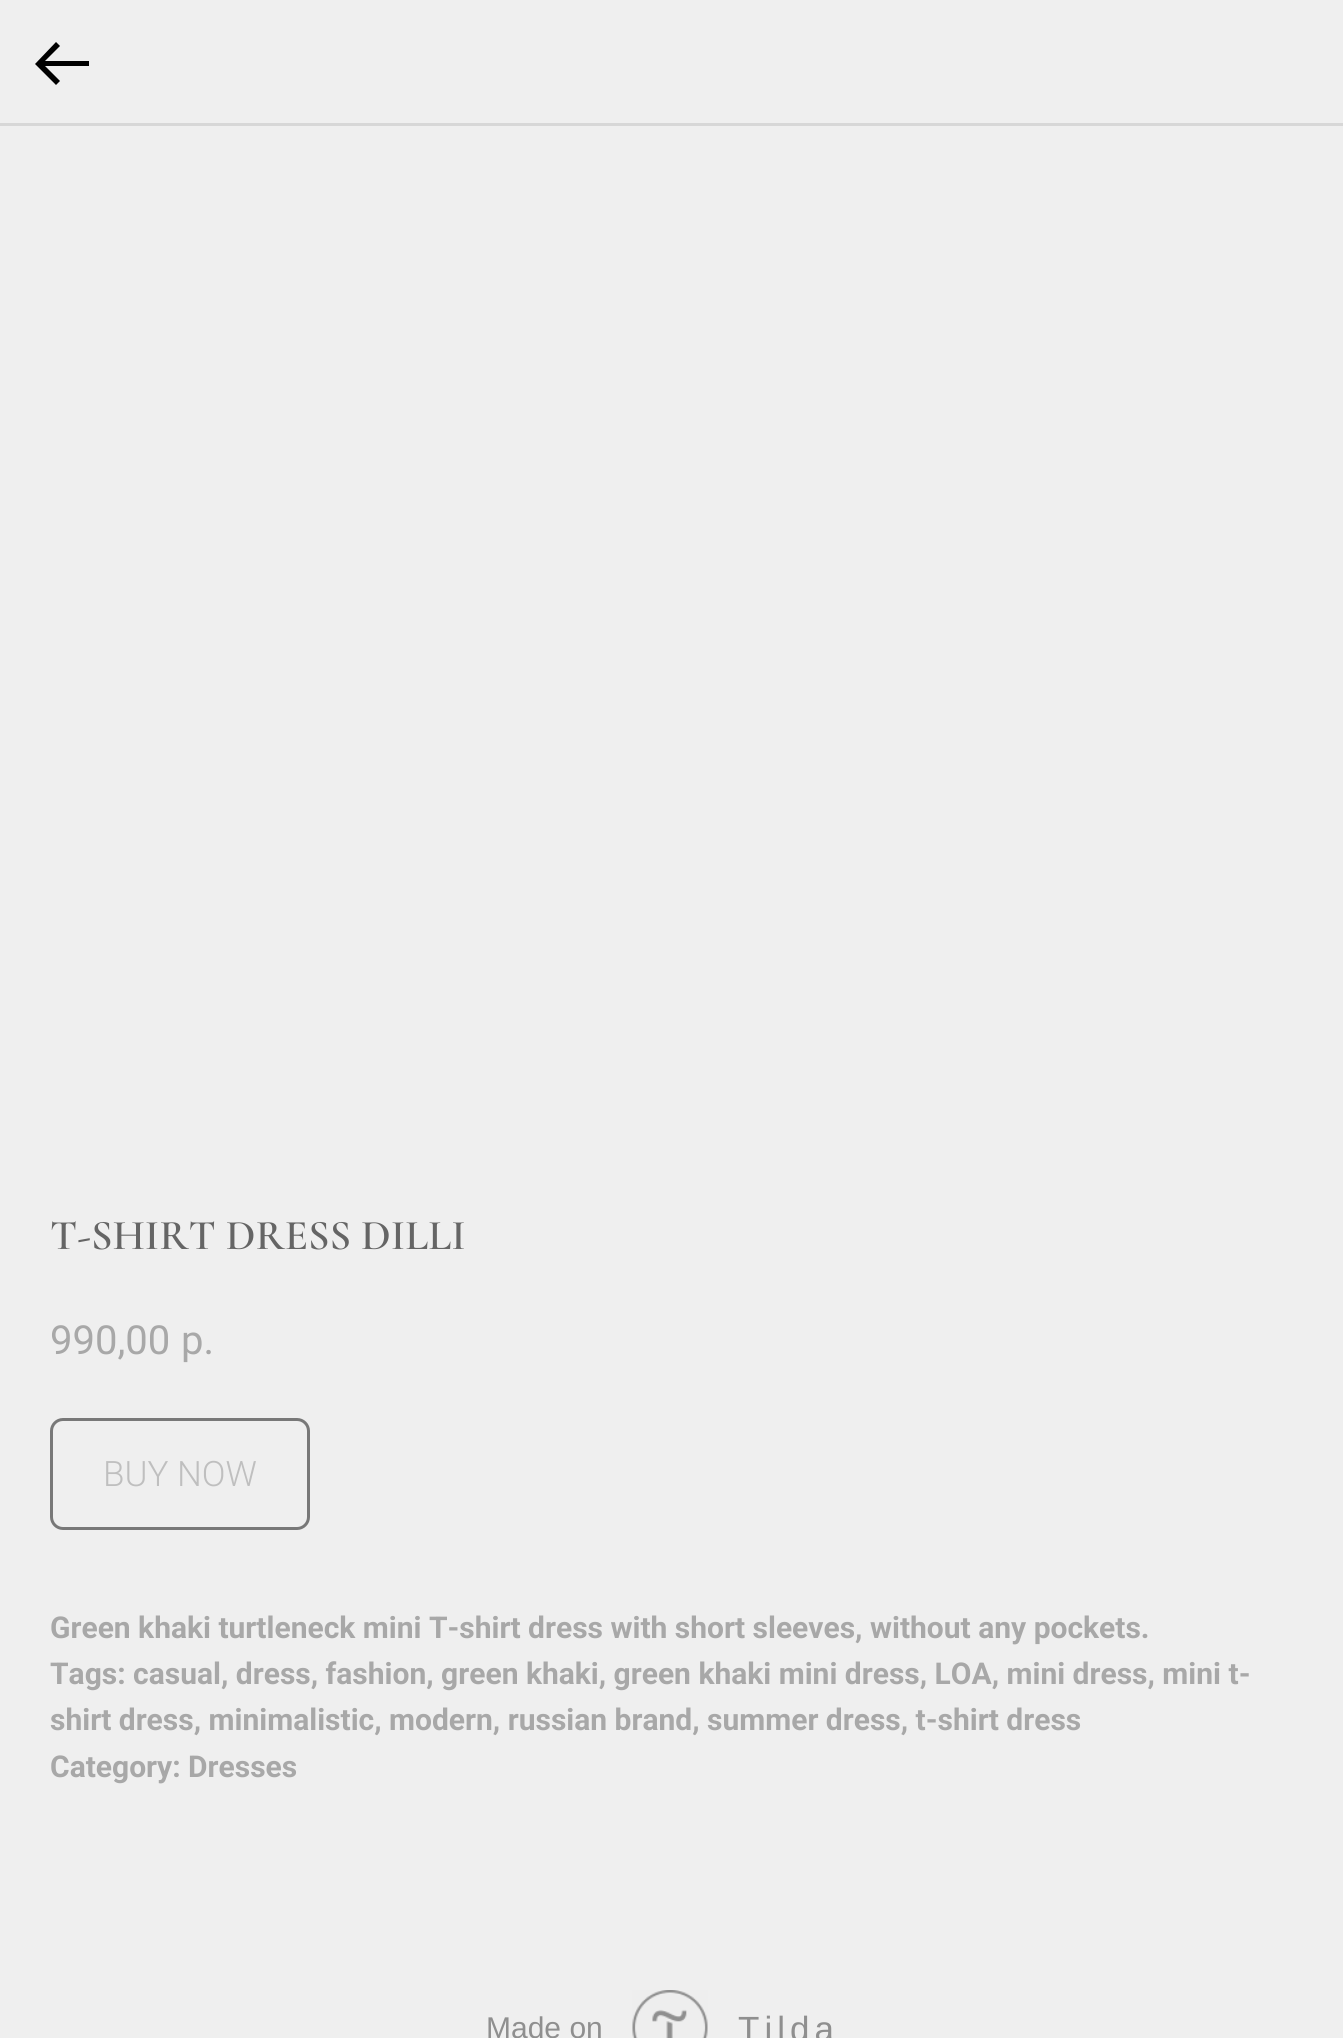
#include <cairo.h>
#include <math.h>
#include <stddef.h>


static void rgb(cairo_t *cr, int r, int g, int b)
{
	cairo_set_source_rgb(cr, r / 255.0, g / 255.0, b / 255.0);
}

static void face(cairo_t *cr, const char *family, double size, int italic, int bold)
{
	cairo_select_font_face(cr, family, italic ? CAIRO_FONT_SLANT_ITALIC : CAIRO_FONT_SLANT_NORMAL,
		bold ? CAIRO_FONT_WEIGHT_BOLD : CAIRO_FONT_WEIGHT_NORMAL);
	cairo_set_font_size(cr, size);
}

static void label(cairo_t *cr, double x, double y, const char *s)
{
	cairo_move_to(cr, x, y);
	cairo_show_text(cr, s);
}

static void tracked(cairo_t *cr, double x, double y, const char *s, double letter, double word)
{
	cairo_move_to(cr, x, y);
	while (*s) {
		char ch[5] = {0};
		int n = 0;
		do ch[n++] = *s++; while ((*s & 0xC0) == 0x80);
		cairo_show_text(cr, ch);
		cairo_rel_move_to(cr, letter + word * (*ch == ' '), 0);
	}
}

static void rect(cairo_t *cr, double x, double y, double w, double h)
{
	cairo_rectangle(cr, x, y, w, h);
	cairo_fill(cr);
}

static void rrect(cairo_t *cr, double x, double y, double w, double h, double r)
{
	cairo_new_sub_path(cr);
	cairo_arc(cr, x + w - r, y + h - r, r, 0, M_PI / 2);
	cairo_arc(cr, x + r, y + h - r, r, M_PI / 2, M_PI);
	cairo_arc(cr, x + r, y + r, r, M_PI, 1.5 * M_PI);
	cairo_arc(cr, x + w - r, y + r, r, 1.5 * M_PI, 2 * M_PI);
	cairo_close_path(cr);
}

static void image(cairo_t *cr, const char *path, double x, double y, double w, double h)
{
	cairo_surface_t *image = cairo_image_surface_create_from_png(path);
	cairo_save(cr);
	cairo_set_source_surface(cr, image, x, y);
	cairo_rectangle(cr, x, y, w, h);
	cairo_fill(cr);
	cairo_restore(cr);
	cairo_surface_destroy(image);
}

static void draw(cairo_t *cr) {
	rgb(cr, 239, 239, 239);
	cairo_paint(cr);
	rgb(cr, 215, 215, 215);
	rect(cr, 0, 123, 1343, 3);
	rgb(cr, 0, 0, 0);
	cairo_new_path(cr);
	cairo_move_to(cr, 56, 42);
	cairo_line_to(cr, 60, 46);
	cairo_line_to(cr, 45, 61);
	cairo_line_to(cr, 89, 61);
	cairo_line_to(cr, 89, 66);
	cairo_line_to(cr, 45, 66);
	cairo_line_to(cr, 60, 81);
	cairo_line_to(cr, 56, 85);
	cairo_line_to(cr, 35, 64);
	cairo_close_path(cr);
	cairo_fill(cr);
	face(cr, "Cormorant Garamond SemiBold", 42.5, 0, 0);
	rgb(cr, 101, 101, 101);
	label(cr, 50, 1249, "T-SHIRT DRESS DILLI");
	face(cr, "Roboto", 40, 0, 0);
	rgb(cr, 168, 168, 168);
	label(cr, 50, 1354, "990,00");
	label(cr, 181, 1354, "р.");
	rrect(cr, 51.5, 1419.5, 257, 109, 11.5);
	rgb(cr, 120, 120, 120);
	cairo_set_line_width(cr, 3);
	cairo_stroke(cr);
	face(cr, "Roboto Light", 35, 0, 0);
	rgb(cr, 191, 191, 191);
	label(cr, 103, 1486, "BUY NOW");
	face(cr, "Roboto", 30, 0, 1);
	rgb(cr, 168, 168, 168);
	label(cr, 50, 1638, "Green khaki turtleneck mini T-shirt dress with short sleeves, without any pockets.");
	label(cr, 50, 1684, "Tags: casual, dress, fashion, green khaki, green khaki mini dress, LOA, mini dress, mini t-");
	label(cr, 50, 1730, "shirt dress, minimalistic, modern, russian brand, summer dress, t-shirt dress");
	label(cr, 50, 1777, "Category: Dresses");
	face(cr, "Liberation Sans", 30, 0, 0);
	rgb(cr, 143, 143, 143);
	label(cr, 486, 2038, "Made on");
	image(cr, "image0.png", 632, 1990, 76, 48);
	face(cr, "Liberation Sans", 35, 0, 0);
	tracked(cr, 738, 2041, "Tilda", 5, 0);
}

int main(void) {
	cairo_surface_t *surface = cairo_image_surface_create(CAIRO_FORMAT_RGB24, 1343, 2038);
	cairo_t *cr = cairo_create(surface);
	cairo_font_options_t *options = cairo_font_options_create();
	cairo_font_options_set_hint_metrics(options, CAIRO_HINT_METRICS_OFF);
	cairo_font_options_set_hint_style(options, CAIRO_HINT_STYLE_NONE);
	cairo_set_font_options(cr, options);
	cairo_set_miter_limit(cr, 4);
	draw(cr);
	cairo_surface_write_to_png(surface, "render.png");
	cairo_font_options_destroy(options);
	cairo_destroy(cr);
	cairo_surface_destroy(surface);
	return 0;
}
